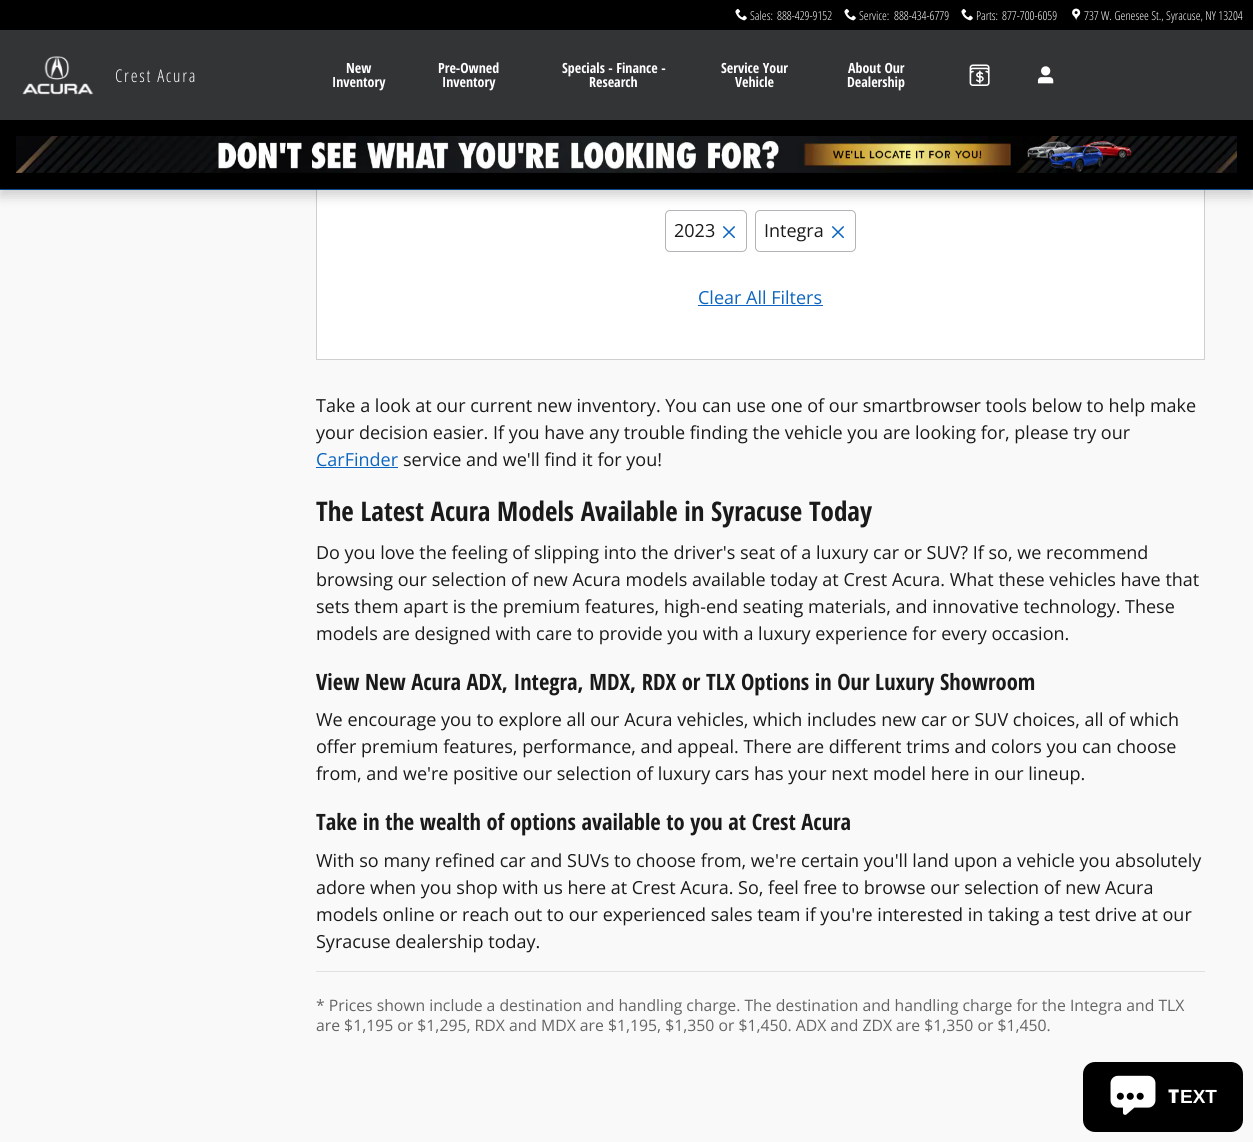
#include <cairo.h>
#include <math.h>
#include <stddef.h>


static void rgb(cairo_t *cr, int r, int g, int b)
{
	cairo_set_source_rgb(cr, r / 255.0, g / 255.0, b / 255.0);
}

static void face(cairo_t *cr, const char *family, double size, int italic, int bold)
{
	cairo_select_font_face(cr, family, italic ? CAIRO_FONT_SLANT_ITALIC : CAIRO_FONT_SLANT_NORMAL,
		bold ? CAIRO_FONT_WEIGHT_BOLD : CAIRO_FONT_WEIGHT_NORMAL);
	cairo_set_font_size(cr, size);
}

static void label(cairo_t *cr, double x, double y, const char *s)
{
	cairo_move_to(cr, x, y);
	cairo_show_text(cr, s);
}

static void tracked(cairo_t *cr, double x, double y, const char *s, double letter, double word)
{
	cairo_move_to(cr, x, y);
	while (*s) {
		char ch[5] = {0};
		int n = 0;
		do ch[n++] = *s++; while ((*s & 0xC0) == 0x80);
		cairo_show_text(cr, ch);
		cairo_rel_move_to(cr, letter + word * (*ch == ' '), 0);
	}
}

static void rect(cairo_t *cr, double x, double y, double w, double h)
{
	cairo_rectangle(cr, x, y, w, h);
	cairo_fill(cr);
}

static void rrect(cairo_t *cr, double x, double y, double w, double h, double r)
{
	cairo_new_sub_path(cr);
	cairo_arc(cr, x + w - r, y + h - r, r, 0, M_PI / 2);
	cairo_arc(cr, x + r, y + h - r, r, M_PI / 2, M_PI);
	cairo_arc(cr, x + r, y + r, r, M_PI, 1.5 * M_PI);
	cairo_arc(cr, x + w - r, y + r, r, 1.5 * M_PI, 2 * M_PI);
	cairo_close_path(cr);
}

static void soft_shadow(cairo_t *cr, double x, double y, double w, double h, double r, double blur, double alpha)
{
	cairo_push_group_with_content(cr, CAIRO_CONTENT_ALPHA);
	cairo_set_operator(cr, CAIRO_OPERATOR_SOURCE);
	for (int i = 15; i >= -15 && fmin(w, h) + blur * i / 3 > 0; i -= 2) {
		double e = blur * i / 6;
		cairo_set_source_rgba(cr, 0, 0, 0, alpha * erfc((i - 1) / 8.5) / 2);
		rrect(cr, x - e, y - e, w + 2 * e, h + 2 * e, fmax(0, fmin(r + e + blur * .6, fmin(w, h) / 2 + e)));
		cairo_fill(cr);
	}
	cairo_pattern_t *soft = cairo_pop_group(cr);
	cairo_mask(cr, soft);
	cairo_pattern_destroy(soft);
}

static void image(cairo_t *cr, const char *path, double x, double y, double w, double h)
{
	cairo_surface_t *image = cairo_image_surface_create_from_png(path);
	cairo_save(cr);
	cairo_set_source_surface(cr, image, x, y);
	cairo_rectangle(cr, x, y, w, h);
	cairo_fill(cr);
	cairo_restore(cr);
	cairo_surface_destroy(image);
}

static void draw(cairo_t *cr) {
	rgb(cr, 249, 249, 250);
	cairo_paint(cr);
	rgb(cr, 255, 255, 255);
	rect(cr, 317, 190, 887, 169);
	cairo_rectangle(cr, 316.5, -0.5, 888, 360);
	rgb(cr, 206, 207, 209);
	cairo_set_line_width(cr, 1);
	cairo_stroke(cr);
	rrect(cr, 665.5, 210.5, 81, 41, 4.5);
	rgb(cr, 179, 180, 183);
	cairo_stroke(cr);
	rrect(cr, 755.5, 210.5, 100, 41, 4.5);
	cairo_stroke(cr);
	rgb(cr, 0, 0, 0);
	soft_shadow(cr, 0, 6, 1253, 190, 0, 6, 0.18);
	rgb(cr, 51, 52, 54);
	rect(cr, 0, 30, 1253, 90);
	rgb(cr, 10, 70, 141);
	rect(cr, 0, 189, 1253, 1);
	rgb(cr, 0, 0, 0);
	rect(cr, 0, 0, 1253, 30);
	image(cr, "image0.png", 735, 8, 12, 13);
	face(cr, "Open Sans Light", 12.25, 0, 0);
	rgb(cr, 255, 255, 255);
	label(cr, 750, 20, "Sales:");
	label(cr, 777, 20, "888-429-9152");
	image(cr, "image0.png", 844, 8, 12, 13);
	label(cr, 859, 20, "Service:");
	label(cr, 894, 20, "888-434-6779");
	image(cr, "image0.png", 961, 8, 12, 13);
	label(cr, 976, 20, "Parts:");
	label(cr, 1002, 20, "877-700-6059");
	image(cr, "image1.png", 1072, 8, 9, 13);
	label(cr, 1084, 20, "737 W. Genesee St., Syracuse, NY 13204");
	image(cr, "image2.png", 22, 56, 72, 39);
	face(cr, "Open Sans Light", 17.5, 0, 0);
	tracked(cr, 115, 82, "Crest Acura", 1.75, 0);
	face(cr, "Open Sans Condensed", 14, 0, 1);
	label(cr, 346, 73, "New");
	label(cr, 332, 87, "Inventory");
	label(cr, 438, 73, "Pre-Owned");
	label(cr, 442, 87, "Inventory");
	label(cr, 562, 73, "Specials - Finance -");
	label(cr, 589, 87, "Research");
	label(cr, 721, 73, "Service Your");
	label(cr, 735, 87, "Vehicle");
	label(cr, 848, 73, "About Our");
	label(cr, 847, 87, "Dealership");
	image(cr, "image3.png", 969, 64, 21, 22);
	image(cr, "image4.png", 1037, 66, 17, 18);
	rgb(cr, 0, 0, 0);
	rect(cr, 0, 120, 1253, 69);
	image(cr, "image5.png", 16, 136, 1221, 37);
	face(cr, "Open Sans", 18, 0, 0);
	rgb(cr, 26, 26, 26);
	label(cr, 674, 237, "2023");
	image(cr, "image6.png", 723, 226, 12, 13);
	label(cr, 764, 237, "Integra");
	image(cr, "image6.png", 832, 226, 12, 13);
	rgb(cr, 13, 101, 191);
	label(cr, 698, 304, "Clear All Filters");
	rect(cr, 698, 305, 125, 1);
	rgb(cr, 26, 26, 26);
	label(cr, 316, 412, "Take a look at our current new inventory. You can use one of our smartbrowser tools below to help make");
	label(cr, 316, 439, "your decision easier. If you have any trouble finding the vehicle you are looking for, please try our");
	rgb(cr, 13, 101, 191);
	label(cr, 316, 466, "CarFinder");
	rect(cr, 316, 467, 82, 1);
	rgb(cr, 26, 26, 26);
	label(cr, 403, 466, "service and we'll find it for you!");
	face(cr, "Open Sans Condensed", 27, 0, 1);
	label(cr, 316, 521, "The Latest Acura Models Available in Syracuse Today");
	face(cr, "Open Sans", 18, 0, 0);
	label(cr, 316, 559, "Do you love the feeling of slipping into the driver's seat of a luxury car or SUV? If so, we recommend");
	label(cr, 316, 586, "browsing our selection of new Acura models available today at Crest Acura. What these vehicles have that");
	label(cr, 316, 613, "sets them apart is the premium features, high-end seating materials, and innovative technology. These");
	label(cr, 316, 640, "models are designed with care to provide you with a luxury experience for every occasion.");
	face(cr, "Open Sans Condensed", 22.5, 0, 1);
	label(cr, 316, 690, "View New Acura ADX, Integra, MDX, RDX or TLX Options in Our Luxury Showroom");
	face(cr, "Open Sans", 18, 0, 0);
	label(cr, 316, 726, "We encourage you to explore all our Acura vehicles, which includes new car or SUV choices, all of which");
	label(cr, 316, 753, "offer premium features, performance, and appeal. There are different trims and colors you can choose");
	label(cr, 316, 780, "from, and we're positive our selection of luxury cars has your next model here in our lineup.");
	face(cr, "Open Sans Condensed", 22.5, 0, 1);
	label(cr, 316, 830, "Take in the wealth of options available to you at Crest Acura");
	face(cr, "Open Sans", 18, 0, 0);
	label(cr, 316, 867, "With so many refined car and SUVs to choose from, we're certain you'll land upon a vehicle you absolutely");
	label(cr, 316, 894, "adore when you shop with us here at Crest Acura. So, feel free to browse our selection of new Acura");
	label(cr, 316, 921, "models online or reach out to our experienced sales team if you're interested in taking a test drive at our");
	label(cr, 316, 948, "Syracuse dealership today.");
	rgb(cr, 224, 224, 225);
	rect(cr, 316, 971, 889, 1);
	face(cr, "Open Sans", 15.75, 0, 0);
	rgb(cr, 100, 100, 100);
	label(cr, 316, 1011, "* Prices shown include a destination and handling charge. The destination and handling charge for the Integra and TLX");
	label(cr, 316, 1031, "are $1,195 or $1,295, RDX and MDX are $1,195, $1,350 or $1,450. ADX and ZDX are $1,350 or $1,450.");
	rgb(cr, 0, 0, 0);
	rrect(cr, 1083, 1062, 160, 70, 12);
	cairo_fill(cr);
	image(cr, "image7.png", 1110, 1075, 46, 40);
	face(cr, "Noto Sans Black", 19, 0, 0);
	rgb(cr, 255, 255, 255);
	label(cr, 1168, 1103, "T");
	face(cr, "Liberation Sans", 19, 0, 1);
	label(cr, 1180, 1103, "EXT");
}

int main(void) {
	cairo_surface_t *surface = cairo_image_surface_create(CAIRO_FORMAT_RGB24, 1253, 1142);
	cairo_t *cr = cairo_create(surface);
	cairo_font_options_t *options = cairo_font_options_create();
	cairo_font_options_set_hint_metrics(options, CAIRO_HINT_METRICS_OFF);
	cairo_font_options_set_hint_style(options, CAIRO_HINT_STYLE_NONE);
	cairo_set_font_options(cr, options);
	cairo_set_miter_limit(cr, 4);
	draw(cr);
	cairo_surface_write_to_png(surface, "render.png");
	cairo_font_options_destroy(options);
	cairo_destroy(cr);
	cairo_surface_destroy(surface);
	return 0;
}
